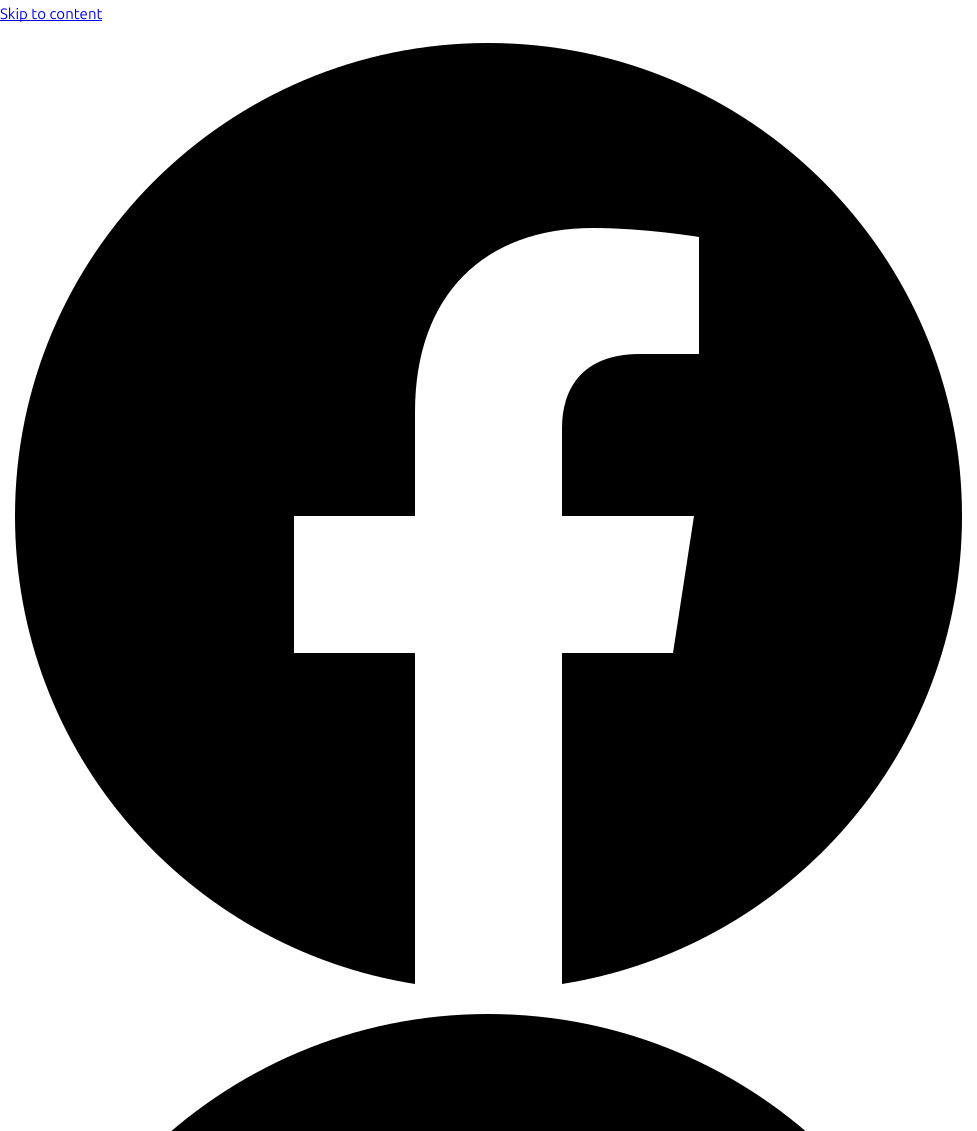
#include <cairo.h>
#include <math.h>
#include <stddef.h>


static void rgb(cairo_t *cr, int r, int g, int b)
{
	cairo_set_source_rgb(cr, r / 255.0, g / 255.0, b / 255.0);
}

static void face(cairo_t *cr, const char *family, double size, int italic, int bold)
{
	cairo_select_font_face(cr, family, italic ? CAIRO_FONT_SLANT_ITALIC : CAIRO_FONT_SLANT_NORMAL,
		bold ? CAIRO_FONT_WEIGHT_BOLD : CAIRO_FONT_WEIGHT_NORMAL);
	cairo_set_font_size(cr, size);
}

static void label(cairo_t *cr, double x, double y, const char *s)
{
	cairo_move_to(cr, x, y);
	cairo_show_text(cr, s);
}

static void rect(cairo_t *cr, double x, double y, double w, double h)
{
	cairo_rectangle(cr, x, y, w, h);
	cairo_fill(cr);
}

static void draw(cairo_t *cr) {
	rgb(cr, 255, 255, 255);
	cairo_paint(cr);
	rgb(cr, 0, 0, 238);
	rect(cr, 0, 20, 102, 1);
	face(cr, "Ubuntu", 15, 0, 0);
	label(cr, 0, 19, "Skip to content");
	rgb(cr, 0, 0, 0);
	cairo_new_path(cr);
	cairo_move_to(cr, 962, 516);
	cairo_curve_to(cr, 962, 255, 750, 43, 488, 43);
	cairo_curve_to(cr, 227, 43, 15, 255, 15, 516);
	cairo_curve_to(cr, 15, 753, 188, 948, 415, 984);
	cairo_line_to(cr, 415, 653);
	cairo_line_to(cr, 294, 653);
	cairo_line_to(cr, 294, 516);
	cairo_line_to(cr, 415, 516);
	cairo_line_to(cr, 415, 412);
	cairo_curve_to(cr, 415, 294, 485, 228, 593, 228);
	cairo_curve_to(cr, 645, 228, 699, 237, 699, 237);
	cairo_line_to(cr, 699, 354);
	cairo_line_to(cr, 640, 354);
	cairo_curve_to(cr, 581, 354, 562, 390, 562, 428);
	cairo_line_to(cr, 562, 516);
	cairo_line_to(cr, 694, 516);
	cairo_line_to(cr, 673, 653);
	cairo_line_to(cr, 562, 653);
	cairo_line_to(cr, 562, 984);
	cairo_curve_to(cr, 789, 948, 962, 753, 962, 516);
	cairo_close_path(cr);
	cairo_fill(cr);
	cairo_new_path(cr);
	cairo_move_to(cr, 438, 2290);
	cairo_curve_to(cr, 69, 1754, 0, 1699, 0, 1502);
	cairo_curve_to(cr, 0, 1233, 219, 1014, 488, 1014);
	cairo_curve_to(cr, 758, 1014, 977, 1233, 977, 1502);
	cairo_curve_to(cr, 977, 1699, 908, 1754, 539, 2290);
	cairo_curve_to(cr, 514, 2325, 463, 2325, 438, 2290);
	cairo_close_path(cr);
	cairo_move_to(cr, 488, 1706);
	cairo_curve_to(cr, 601, 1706, 692, 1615, 692, 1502);
	cairo_curve_to(cr, 692, 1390, 601, 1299, 488, 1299);
	cairo_curve_to(cr, 376, 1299, 285, 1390, 285, 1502);
	cairo_curve_to(cr, 285, 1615, 376, 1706, 488, 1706);
	cairo_close_path(cr);
	cairo_fill(cr);
}

int main(void) {
	cairo_surface_t *surface = cairo_image_surface_create(CAIRO_FORMAT_RGB24, 977, 1131);
	cairo_t *cr = cairo_create(surface);
	cairo_font_options_t *options = cairo_font_options_create();
	cairo_font_options_set_hint_metrics(options, CAIRO_HINT_METRICS_OFF);
	cairo_font_options_set_hint_style(options, CAIRO_HINT_STYLE_NONE);
	cairo_set_font_options(cr, options);
	cairo_set_miter_limit(cr, 4);
	draw(cr);
	cairo_surface_write_to_png(surface, "render.png");
	cairo_font_options_destroy(options);
	cairo_destroy(cr);
	cairo_surface_destroy(surface);
	return 0;
}
